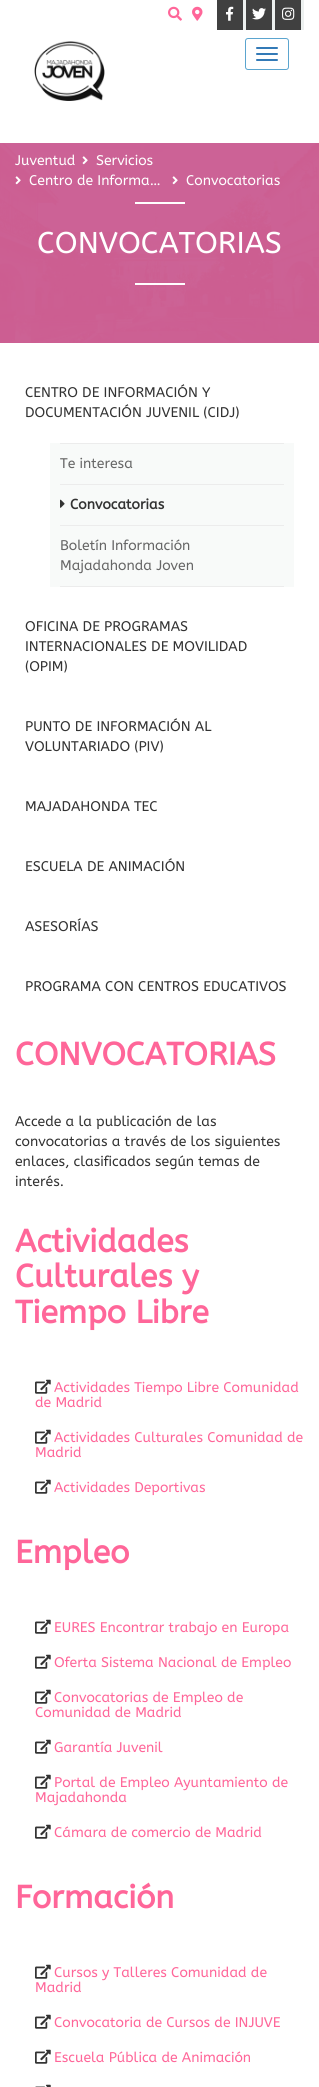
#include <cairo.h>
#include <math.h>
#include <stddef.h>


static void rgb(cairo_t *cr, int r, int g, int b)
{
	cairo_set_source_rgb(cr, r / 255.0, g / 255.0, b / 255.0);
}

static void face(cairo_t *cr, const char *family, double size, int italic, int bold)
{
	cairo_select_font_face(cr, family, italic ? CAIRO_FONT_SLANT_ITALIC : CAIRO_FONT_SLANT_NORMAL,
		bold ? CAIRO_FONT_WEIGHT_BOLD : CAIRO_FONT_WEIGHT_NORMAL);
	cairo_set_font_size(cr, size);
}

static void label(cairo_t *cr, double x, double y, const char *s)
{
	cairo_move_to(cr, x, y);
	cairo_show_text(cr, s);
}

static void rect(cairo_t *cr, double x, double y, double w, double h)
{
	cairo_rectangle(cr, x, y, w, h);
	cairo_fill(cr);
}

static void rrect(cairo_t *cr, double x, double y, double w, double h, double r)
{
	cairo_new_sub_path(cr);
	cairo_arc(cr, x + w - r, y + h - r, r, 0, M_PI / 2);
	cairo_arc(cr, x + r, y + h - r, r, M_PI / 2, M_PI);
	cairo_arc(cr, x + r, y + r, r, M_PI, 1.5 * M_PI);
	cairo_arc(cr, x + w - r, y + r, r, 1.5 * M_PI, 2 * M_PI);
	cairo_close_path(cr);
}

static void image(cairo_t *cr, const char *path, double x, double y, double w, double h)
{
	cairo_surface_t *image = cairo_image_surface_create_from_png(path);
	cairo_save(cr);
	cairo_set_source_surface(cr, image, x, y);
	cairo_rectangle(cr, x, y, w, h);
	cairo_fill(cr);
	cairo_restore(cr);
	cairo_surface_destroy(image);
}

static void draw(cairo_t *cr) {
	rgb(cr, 255, 255, 255);
	cairo_paint(cr);
	image(cr, "image0.png", 168, 6, 14, 15);
	image(cr, "image1.png", 192, 6, 11, 15);
	rgb(cr, 64, 64, 64);
	rect(cr, 217, 0, 26, 30);
	rgb(cr, 237, 241, 240);
	rect(cr, 243, 0, 3, 30);
	image(cr, "image2.png", 226, 6, 8, 15);
	rgb(cr, 64, 64, 64);
	rect(cr, 246, 0, 26, 30);
	rgb(cr, 237, 241, 240);
	rect(cr, 272, 0, 3, 30);
	image(cr, "image3.png", 252, 8, 14, 12);
	rgb(cr, 64, 64, 64);
	rect(cr, 275, 0, 26, 30);
	rgb(cr, 237, 241, 240);
	rect(cr, 301, 0, 3, 30);
	image(cr, "image4.png", 282, 7, 13, 13);
	image(cr, "image5.png", 34, 41, 71, 60);
	rrect(cr, 245.5, 38.5, 43, 31, 2.5);
	rgb(cr, 91, 165, 207);
	cairo_set_line_width(cr, 1);
	cairo_stroke(cr);
	rgb(cr, 51, 122, 183);
	rrect(cr, 256, 47, 22, 2, 1);
	cairo_fill(cr);
	rrect(cr, 256, 53, 22, 2, 1);
	cairo_fill(cr);
	rrect(cr, 256, 59, 22, 2, 1);
	cairo_fill(cr);
	image(cr, "image9.png", 0, 143, 319, 200);
	face(cr, "ABeeZee", 14, 0, 0);
	rgb(cr, 255, 255, 255);
	label(cr, 15, 165, "Juventud");
	image(cr, "image6.png", 82, 156, 6, 9);
	label(cr, 96, 165, "Servicios");
	image(cr, "image7.png", 15, 176, 6, 9);
	label(cr, 29, 185, "Centro de Informa…");
	image(cr, "image8.png", 172, 176, 6, 9);
	label(cr, 186, 185, "Convocatorias");
	rect(cr, 135, 202, 50, 2);
	face(cr, "ABeeZee", 30, 0, 0);
	label(cr, 37, 253, "CONVOCATORIAS");
	rect(cr, 135, 283, 50, 2);
	face(cr, "ABeeZee", 14, 0, 0);
	rgb(cr, 51, 51, 51);
	label(cr, 25, 397, "CENTRO DE INFORMACIÓN Y");
	label(cr, 25, 417, "DOCUMENTACIÓN JUVENIL (CIDJ)");
	rgb(cr, 248, 250, 249);
	rect(cr, 50, 443, 244, 144);
	rgb(cr, 236, 236, 236);
	rect(cr, 60, 443, 224, 1);
	rect(cr, 60, 484, 224, 1);
	rgb(cr, 102, 102, 102);
	label(cr, 60, 468, "Te interesa");
	rgb(cr, 236, 236, 236);
	rect(cr, 60, 525, 224, 1);
	image(cr, "image10.png", 60, 499, 5, 9);
	face(cr, "ABeeZee", 14, 0, 1);
	rgb(cr, 51, 51, 51);
	label(cr, 70, 509, "Convocatorias");
	rgb(cr, 236, 236, 236);
	rect(cr, 60, 586, 224, 1);
	face(cr, "ABeeZee", 14, 0, 0);
	rgb(cr, 102, 102, 102);
	label(cr, 60, 550, "Boletín Información");
	label(cr, 60, 570, "Majadahonda Joven");
	rgb(cr, 51, 51, 51);
	label(cr, 25, 631, "OFICINA DE PROGRAMAS");
	label(cr, 25, 651, "INTERNACIONALES DE MOVILIDAD");
	label(cr, 25, 671, "(OPIM)");
	label(cr, 25, 731, "PUNTO DE INFORMACIÓN AL");
	label(cr, 25, 751, "VOLUNTARIADO (PIV)");
	label(cr, 25, 811, "MAJADAHONDA TEC");
	label(cr, 25, 871, "ESCUELA DE ANIMACIÓN");
	label(cr, 25, 931, "ASESORÍAS");
	label(cr, 25, 991, "PROGRAMA CON CENTROS EDUCATIVOS");
	face(cr, "ABeeZee", 32, 0, 1);
	rgb(cr, 255, 102, 153);
	label(cr, 15, 1065, "CONVOCATORIAS");
	face(cr, "ABeeZee", 14, 0, 0);
	rgb(cr, 51, 51, 51);
	label(cr, 15, 1126, "Accede a la publicación de las");
	label(cr, 15, 1146, "convocatorias a través de los siguientes");
	label(cr, 15, 1166, "enlaces, clasificados según temas de");
	label(cr, 15, 1186, "interés.");
	face(cr, "ABeeZee", 32, 0, 1);
	rgb(cr, 255, 102, 153);
	label(cr, 15, 1252, "Actividades");
	label(cr, 15, 1287, "Culturales y");
	label(cr, 15, 1323, "Tiempo Libre");
	image(cr, "image11.png", 35, 1379, 16, 15);
	face(cr, "ABeeZee", 14, 0, 0);
	label(cr, 54, 1392, "Actividades Tiempo Libre Comunidad");
	label(cr, 35, 1407, "de Madrid");
	image(cr, "image11.png", 35, 1429, 16, 15);
	label(cr, 54, 1442, "Actividades Culturales Comunidad de");
	label(cr, 35, 1457, "Madrid");
	image(cr, "image11.png", 35, 1479, 16, 15);
	label(cr, 54, 1492, "Actividades Deportivas");
	face(cr, "ABeeZee", 32, 0, 1);
	label(cr, 15, 1563, "Empleo");
	image(cr, "image11.png", 35, 1619, 16, 15);
	face(cr, "ABeeZee", 14, 0, 0);
	label(cr, 54, 1632, "EURES Encontrar trabajo en Europa");
	image(cr, "image11.png", 35, 1654, 16, 15);
	label(cr, 54, 1667, "Oferta Sistema Nacional de Empleo");
	image(cr, "image11.png", 35, 1689, 16, 15);
	label(cr, 54, 1702, "Convocatorias de Empleo de");
	label(cr, 35, 1717, "Comunidad de Madrid");
	image(cr, "image11.png", 35, 1739, 16, 15);
	label(cr, 54, 1752, "Garantía Juvenil");
	image(cr, "image11.png", 35, 1774, 16, 15);
	label(cr, 54, 1787, "Portal de Empleo Ayuntamiento de");
	label(cr, 35, 1802, "Majadahonda");
	image(cr, "image11.png", 35, 1824, 16, 15);
	label(cr, 54, 1837, "Cámara de comercio de Madrid");
	face(cr, "ABeeZee", 32, 0, 1);
	label(cr, 15, 1908, "Formación");
	image(cr, "image11.png", 35, 1964, 16, 15);
	face(cr, "ABeeZee", 14, 0, 0);
	label(cr, 54, 1977, "Cursos y Talleres Comunidad de");
	label(cr, 35, 1992, "Madrid");
	image(cr, "image11.png", 35, 2014, 16, 15);
	label(cr, 54, 2027, "Convocatoria de Cursos de INJUVE");
	image(cr, "image11.png", 35, 2049, 16, 15);
	label(cr, 54, 2062, "Escuela Pública de Animación");
	image(cr, "image12.png", 35, 2084, 16, 3);
}

int main(void) {
	cairo_surface_t *surface = cairo_image_surface_create(CAIRO_FORMAT_RGB24, 319, 2087);
	cairo_t *cr = cairo_create(surface);
	cairo_font_options_t *options = cairo_font_options_create();
	cairo_font_options_set_hint_metrics(options, CAIRO_HINT_METRICS_OFF);
	cairo_font_options_set_hint_style(options, CAIRO_HINT_STYLE_NONE);
	cairo_set_font_options(cr, options);
	cairo_set_miter_limit(cr, 4);
	draw(cr);
	cairo_surface_write_to_png(surface, "render.png");
	cairo_font_options_destroy(options);
	cairo_destroy(cr);
	cairo_surface_destroy(surface);
	return 0;
}
